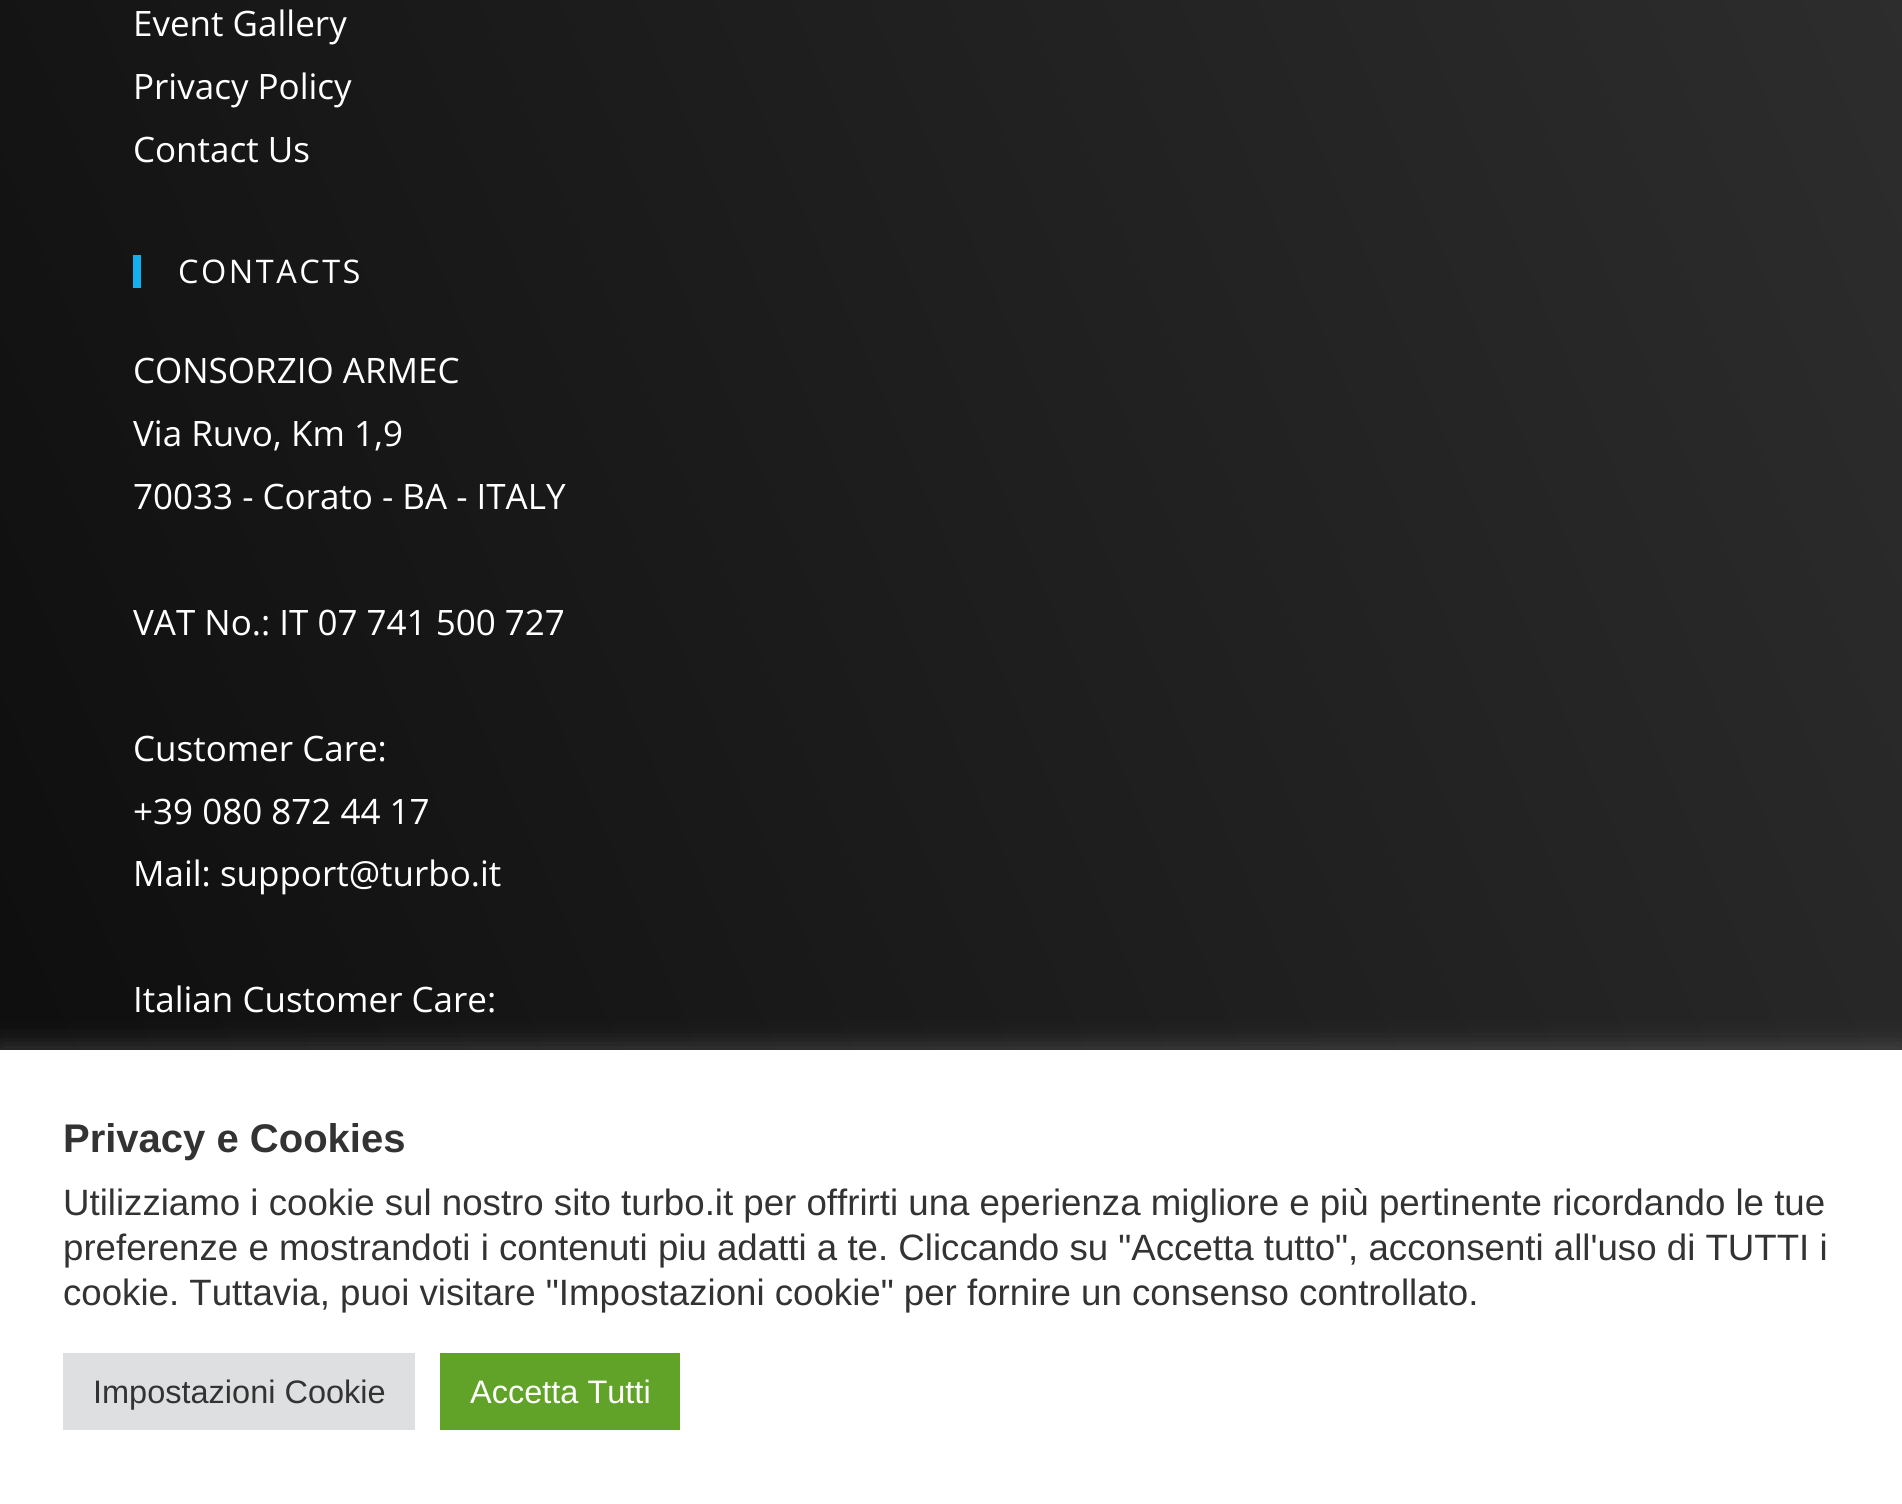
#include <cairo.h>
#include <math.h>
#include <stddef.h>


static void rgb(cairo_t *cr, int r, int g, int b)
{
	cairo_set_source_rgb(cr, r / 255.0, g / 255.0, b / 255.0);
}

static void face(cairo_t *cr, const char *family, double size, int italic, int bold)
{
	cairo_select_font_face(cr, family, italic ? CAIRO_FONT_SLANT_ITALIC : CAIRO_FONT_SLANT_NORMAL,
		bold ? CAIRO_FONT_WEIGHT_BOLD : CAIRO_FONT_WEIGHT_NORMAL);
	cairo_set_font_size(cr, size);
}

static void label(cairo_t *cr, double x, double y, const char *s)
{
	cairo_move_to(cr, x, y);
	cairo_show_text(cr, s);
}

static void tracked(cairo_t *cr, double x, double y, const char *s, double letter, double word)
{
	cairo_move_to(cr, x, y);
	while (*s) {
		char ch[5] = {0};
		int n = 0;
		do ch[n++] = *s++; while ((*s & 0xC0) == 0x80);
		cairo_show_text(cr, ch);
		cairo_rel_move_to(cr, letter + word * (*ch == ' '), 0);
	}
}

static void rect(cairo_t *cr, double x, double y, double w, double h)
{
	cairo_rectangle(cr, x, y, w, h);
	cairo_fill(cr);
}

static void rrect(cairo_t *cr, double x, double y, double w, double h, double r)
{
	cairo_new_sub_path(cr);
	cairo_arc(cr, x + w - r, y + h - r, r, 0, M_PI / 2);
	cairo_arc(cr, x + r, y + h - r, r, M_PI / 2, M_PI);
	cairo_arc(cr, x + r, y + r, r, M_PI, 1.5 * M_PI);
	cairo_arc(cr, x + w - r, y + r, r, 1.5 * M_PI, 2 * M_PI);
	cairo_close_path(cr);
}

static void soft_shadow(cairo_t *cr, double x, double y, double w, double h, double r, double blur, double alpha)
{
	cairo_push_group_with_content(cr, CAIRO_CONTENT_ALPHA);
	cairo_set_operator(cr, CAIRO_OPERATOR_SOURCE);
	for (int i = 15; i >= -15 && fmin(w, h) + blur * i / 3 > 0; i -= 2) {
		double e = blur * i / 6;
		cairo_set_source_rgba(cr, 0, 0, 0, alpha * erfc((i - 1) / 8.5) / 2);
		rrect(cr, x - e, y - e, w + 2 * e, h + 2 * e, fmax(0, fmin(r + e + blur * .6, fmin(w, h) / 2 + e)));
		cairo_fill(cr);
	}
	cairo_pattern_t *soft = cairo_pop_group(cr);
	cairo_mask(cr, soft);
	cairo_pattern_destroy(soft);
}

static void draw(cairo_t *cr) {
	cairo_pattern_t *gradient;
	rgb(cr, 255, 255, 255);
	cairo_paint(cr);
	gradient = cairo_pattern_create_linear(-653, -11, 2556, -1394);
	cairo_pattern_add_color_stop_rgba(gradient, 0, 0.047, 0.047, 0.047, 1);
	cairo_pattern_add_color_stop_rgba(gradient, 1, 0.239, 0.239, 0.239, 1);
	cairo_set_source(cr, gradient);
	cairo_pattern_destroy(gradient);
	rect(cr, 0, 0, 1902, 1050);
	face(cr, "Open Sans", 35, 0, 0);
	rgb(cr, 255, 255, 255);
	label(cr, 133, 36, "Event Gallery");
	label(cr, 133, 99, "Privacy Policy");
	label(cr, 133, 162, "Contact Us");
	rgb(cr, 19, 175, 240);
	rect(cr, 133, 255, 8, 33);
	face(cr, "Open Sans", 32.5, 0, 0);
	rgb(cr, 255, 255, 255);
	tracked(cr, 178, 283, "CONTACTS", 2.5, 0);
	face(cr, "Open Sans", 35, 0, 0);
	label(cr, 133, 383, "CONSORZIO ARMEC");
	label(cr, 133, 446, "Via Ruvo, Km 1,9");
	label(cr, 133, 509, "70033 - Corato - BA - ITALY");
	label(cr, 133, 635, "VAT No.: IT 07 741 500 727");
	label(cr, 133, 761, "Customer Care:");
	label(cr, 133, 824, "+39 080 872 44 17");
	label(cr, 133, 886, "Mail: support@turbo.it");
	label(cr, 133, 1012, "Italian Customer Care:");
	rgb(cr, 172, 171, 171);
	soft_shadow(cr, 0, 1048, 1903, 455, 0, 12.5, 0.3);
	rgb(cr, 255, 255, 255);
	rect(cr, 0, 1050, 1902, 454);
	face(cr, "Liberation Sans", 40, 0, 1);
	rgb(cr, 51, 51, 51);
	label(cr, 63, 1152, "Privacy e Cookies");
	face(cr, "Liberation Sans", 36.65, 0, 0);
	label(cr, 63, 1215, "Utilizziamo i cookie sul nostro sito turbo.it per offrirti una eperienza migliore e più pertinente ricordando le tue");
	label(cr, 63, 1260, "preferenze e mostrandoti i contenuti piu adatti a te. Cliccando su \"Accetta tutto\", acconsenti all'uso di TUTTI i");
	label(cr, 63, 1305, "cookie. Tuttavia, puoi visitare \"Impostazioni cookie\" per fornire un consenso controllato.");
	rgb(cr, 222, 223, 224);
	rect(cr, 63, 1353, 352, 77);
	face(cr, "Liberation Sans", 32.5, 0, 0);
	rgb(cr, 51, 51, 51);
	label(cr, 93, 1403, "Impostazioni Cookie");
	rgb(cr, 97, 162, 41);
	rect(cr, 440, 1353, 240, 77);
	rgb(cr, 255, 255, 255);
	label(cr, 470, 1403, "Accetta Tutti");
}

int main(void) {
	cairo_surface_t *surface = cairo_image_surface_create(CAIRO_FORMAT_RGB24, 1902, 1504);
	cairo_t *cr = cairo_create(surface);
	cairo_font_options_t *options = cairo_font_options_create();
	cairo_font_options_set_hint_metrics(options, CAIRO_HINT_METRICS_OFF);
	cairo_font_options_set_hint_style(options, CAIRO_HINT_STYLE_NONE);
	cairo_set_font_options(cr, options);
	cairo_set_miter_limit(cr, 4);
	draw(cr);
	cairo_surface_write_to_png(surface, "render.png");
	cairo_font_options_destroy(options);
	cairo_destroy(cr);
	cairo_surface_destroy(surface);
	return 0;
}
